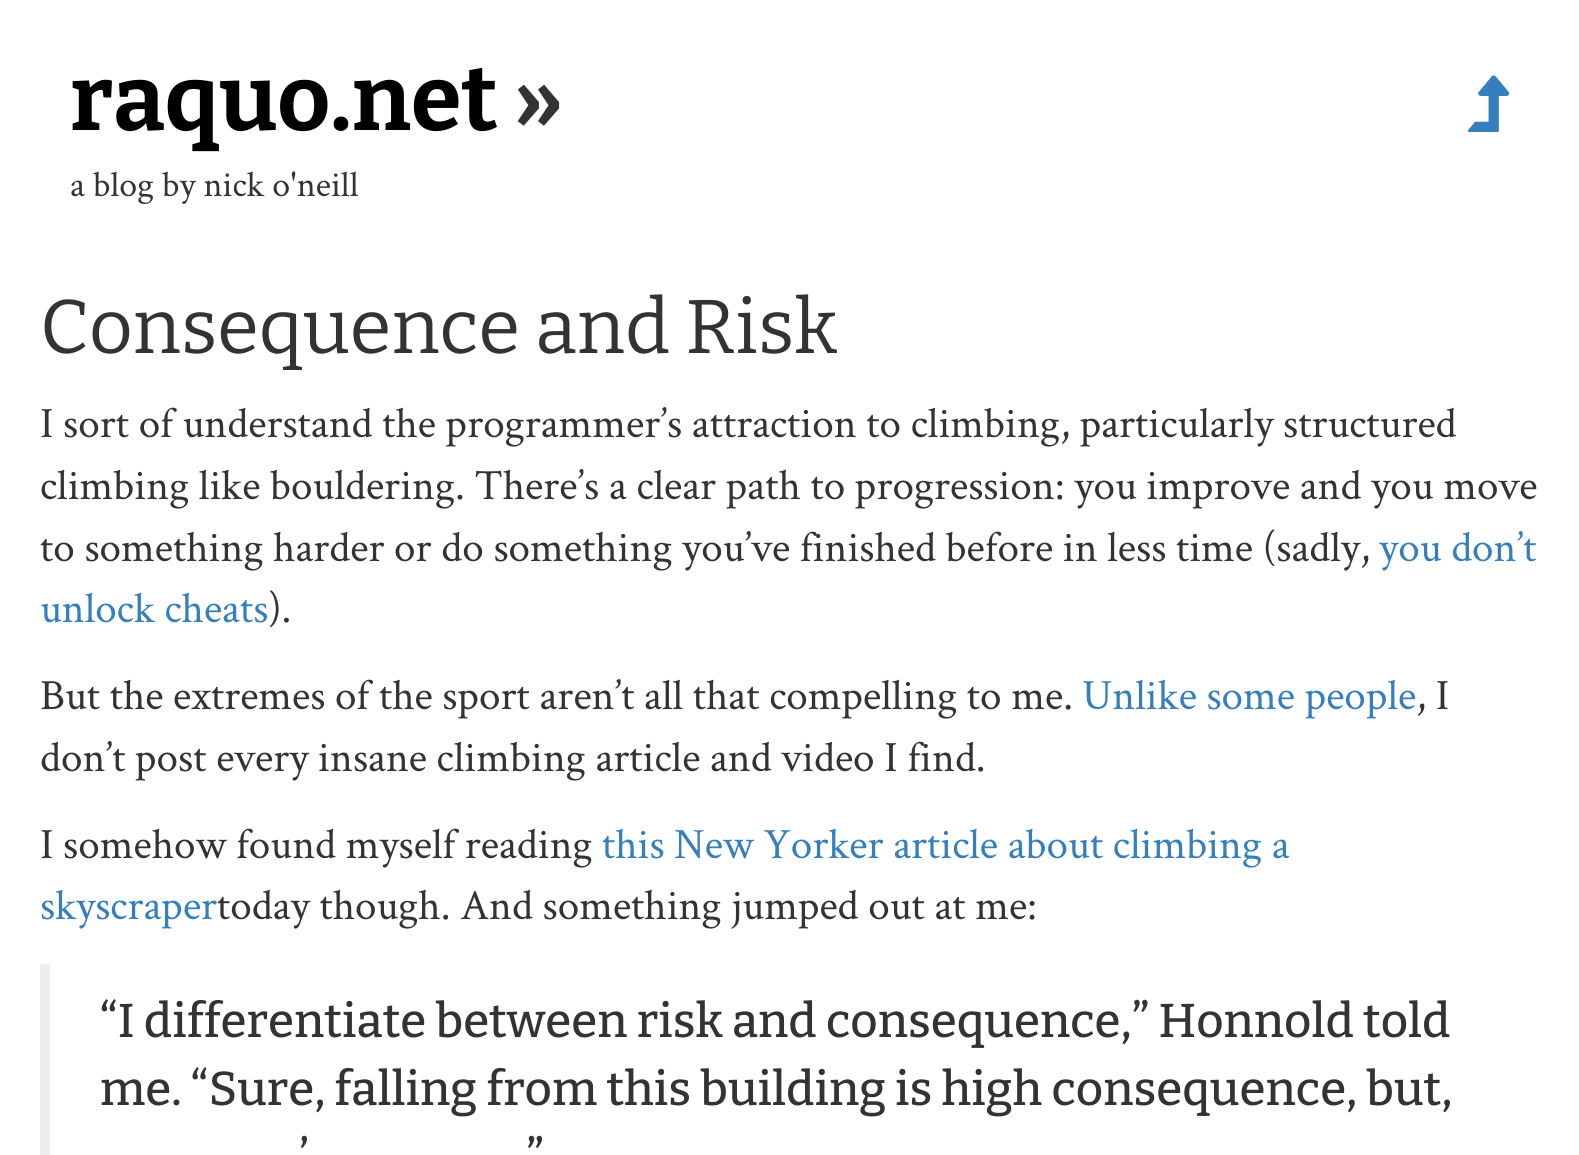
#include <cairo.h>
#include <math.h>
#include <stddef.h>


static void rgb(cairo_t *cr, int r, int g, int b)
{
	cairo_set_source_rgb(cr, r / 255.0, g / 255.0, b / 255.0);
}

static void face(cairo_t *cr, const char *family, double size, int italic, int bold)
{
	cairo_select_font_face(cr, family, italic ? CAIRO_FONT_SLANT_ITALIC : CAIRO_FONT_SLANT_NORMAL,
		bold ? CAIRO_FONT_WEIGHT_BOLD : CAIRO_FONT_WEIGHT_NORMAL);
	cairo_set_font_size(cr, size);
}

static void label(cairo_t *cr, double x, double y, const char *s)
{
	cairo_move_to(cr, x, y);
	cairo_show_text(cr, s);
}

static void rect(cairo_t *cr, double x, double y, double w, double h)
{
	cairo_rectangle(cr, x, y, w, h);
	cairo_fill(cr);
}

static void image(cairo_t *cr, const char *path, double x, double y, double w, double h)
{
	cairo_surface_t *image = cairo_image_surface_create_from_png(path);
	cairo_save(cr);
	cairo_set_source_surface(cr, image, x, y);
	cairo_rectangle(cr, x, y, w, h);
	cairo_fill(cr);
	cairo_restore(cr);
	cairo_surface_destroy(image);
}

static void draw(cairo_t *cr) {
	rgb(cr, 255, 255, 255);
	cairo_paint(cr);
	face(cr, "Bitter", 92, 0, 1);
	rgb(cr, 0, 0, 0);
	label(cr, 70, 130, "raquo.net");
	rgb(cr, 51, 51, 51);
	label(cr, 514, 130, "»");
	image(cr, "image0.png", 1468, 75, 42, 57);
	face(cr, "Crimson Text", 36, 0, 0);
	label(cr, 70, 196, "a blog by nick o'neill");
	cairo_save(cr);
	cairo_rectangle(cr, 40, 286, 1500, 84);
	cairo_clip(cr);
	face(cr, "Bitter", 76, 0, 0);
	label(cr, 40, 353, "Consequence and Risk");
	cairo_restore(cr);
	face(cr, "Crimson Text", 43.2, 0, 0);
	label(cr, 40, 437, "I sort of understand the programmer’s attraction to climbing, particularly structured");
	label(cr, 40, 499, "climbing like bouldering. There’s a clear path to progression: you improve and you move");
	label(cr, 40, 561, "to something harder or do something you’ve finished before in less time (sadly,");
	rgb(cr, 54, 127, 191);
	label(cr, 1379, 561, "you don’t");
	label(cr, 40, 622, "unlock cheats");
	rgb(cr, 51, 51, 51);
	label(cr, 268, 622, ").");
	label(cr, 40, 709, "But the extremes of the sport aren’t all that compelling to me.");
	rgb(cr, 54, 127, 191);
	label(cr, 1082, 709, "Unlike some people");
	rgb(cr, 51, 51, 51);
	label(cr, 1416, 709, ", I");
	label(cr, 40, 771, "don’t post every insane climbing article and video I find.");
	label(cr, 40, 858, "I somehow found myself reading");
	rgb(cr, 54, 127, 191);
	label(cr, 602, 858, "this New Yorker article about climbing a");
	label(cr, 40, 919, "skyscraper");
	rgb(cr, 51, 51, 51);
	label(cr, 217, 919, "today though. And something jumped out at me:");
	rgb(cr, 238, 238, 238);
	rect(cr, 40, 964, 10, 191);
	face(cr, "Bitter Medium", 47.5, 0, 0);
	rgb(cr, 51, 51, 51);
	label(cr, 100, 1037, "“I differentiate between risk and consequence,” Honnold told");
	label(cr, 100, 1105, "me. “Sure, falling from this building is high consequence, but,");
	label(cr, 299, 1173, "’");
	label(cr, 526, 1173, "”");
}

int main(void) {
	cairo_surface_t *surface = cairo_image_surface_create(CAIRO_FORMAT_RGB24, 1579, 1155);
	cairo_t *cr = cairo_create(surface);
	cairo_font_options_t *options = cairo_font_options_create();
	cairo_font_options_set_hint_metrics(options, CAIRO_HINT_METRICS_OFF);
	cairo_font_options_set_hint_style(options, CAIRO_HINT_STYLE_NONE);
	cairo_set_font_options(cr, options);
	cairo_set_miter_limit(cr, 4);
	draw(cr);
	cairo_surface_write_to_png(surface, "render.png");
	cairo_font_options_destroy(options);
	cairo_destroy(cr);
	cairo_surface_destroy(surface);
	return 0;
}
